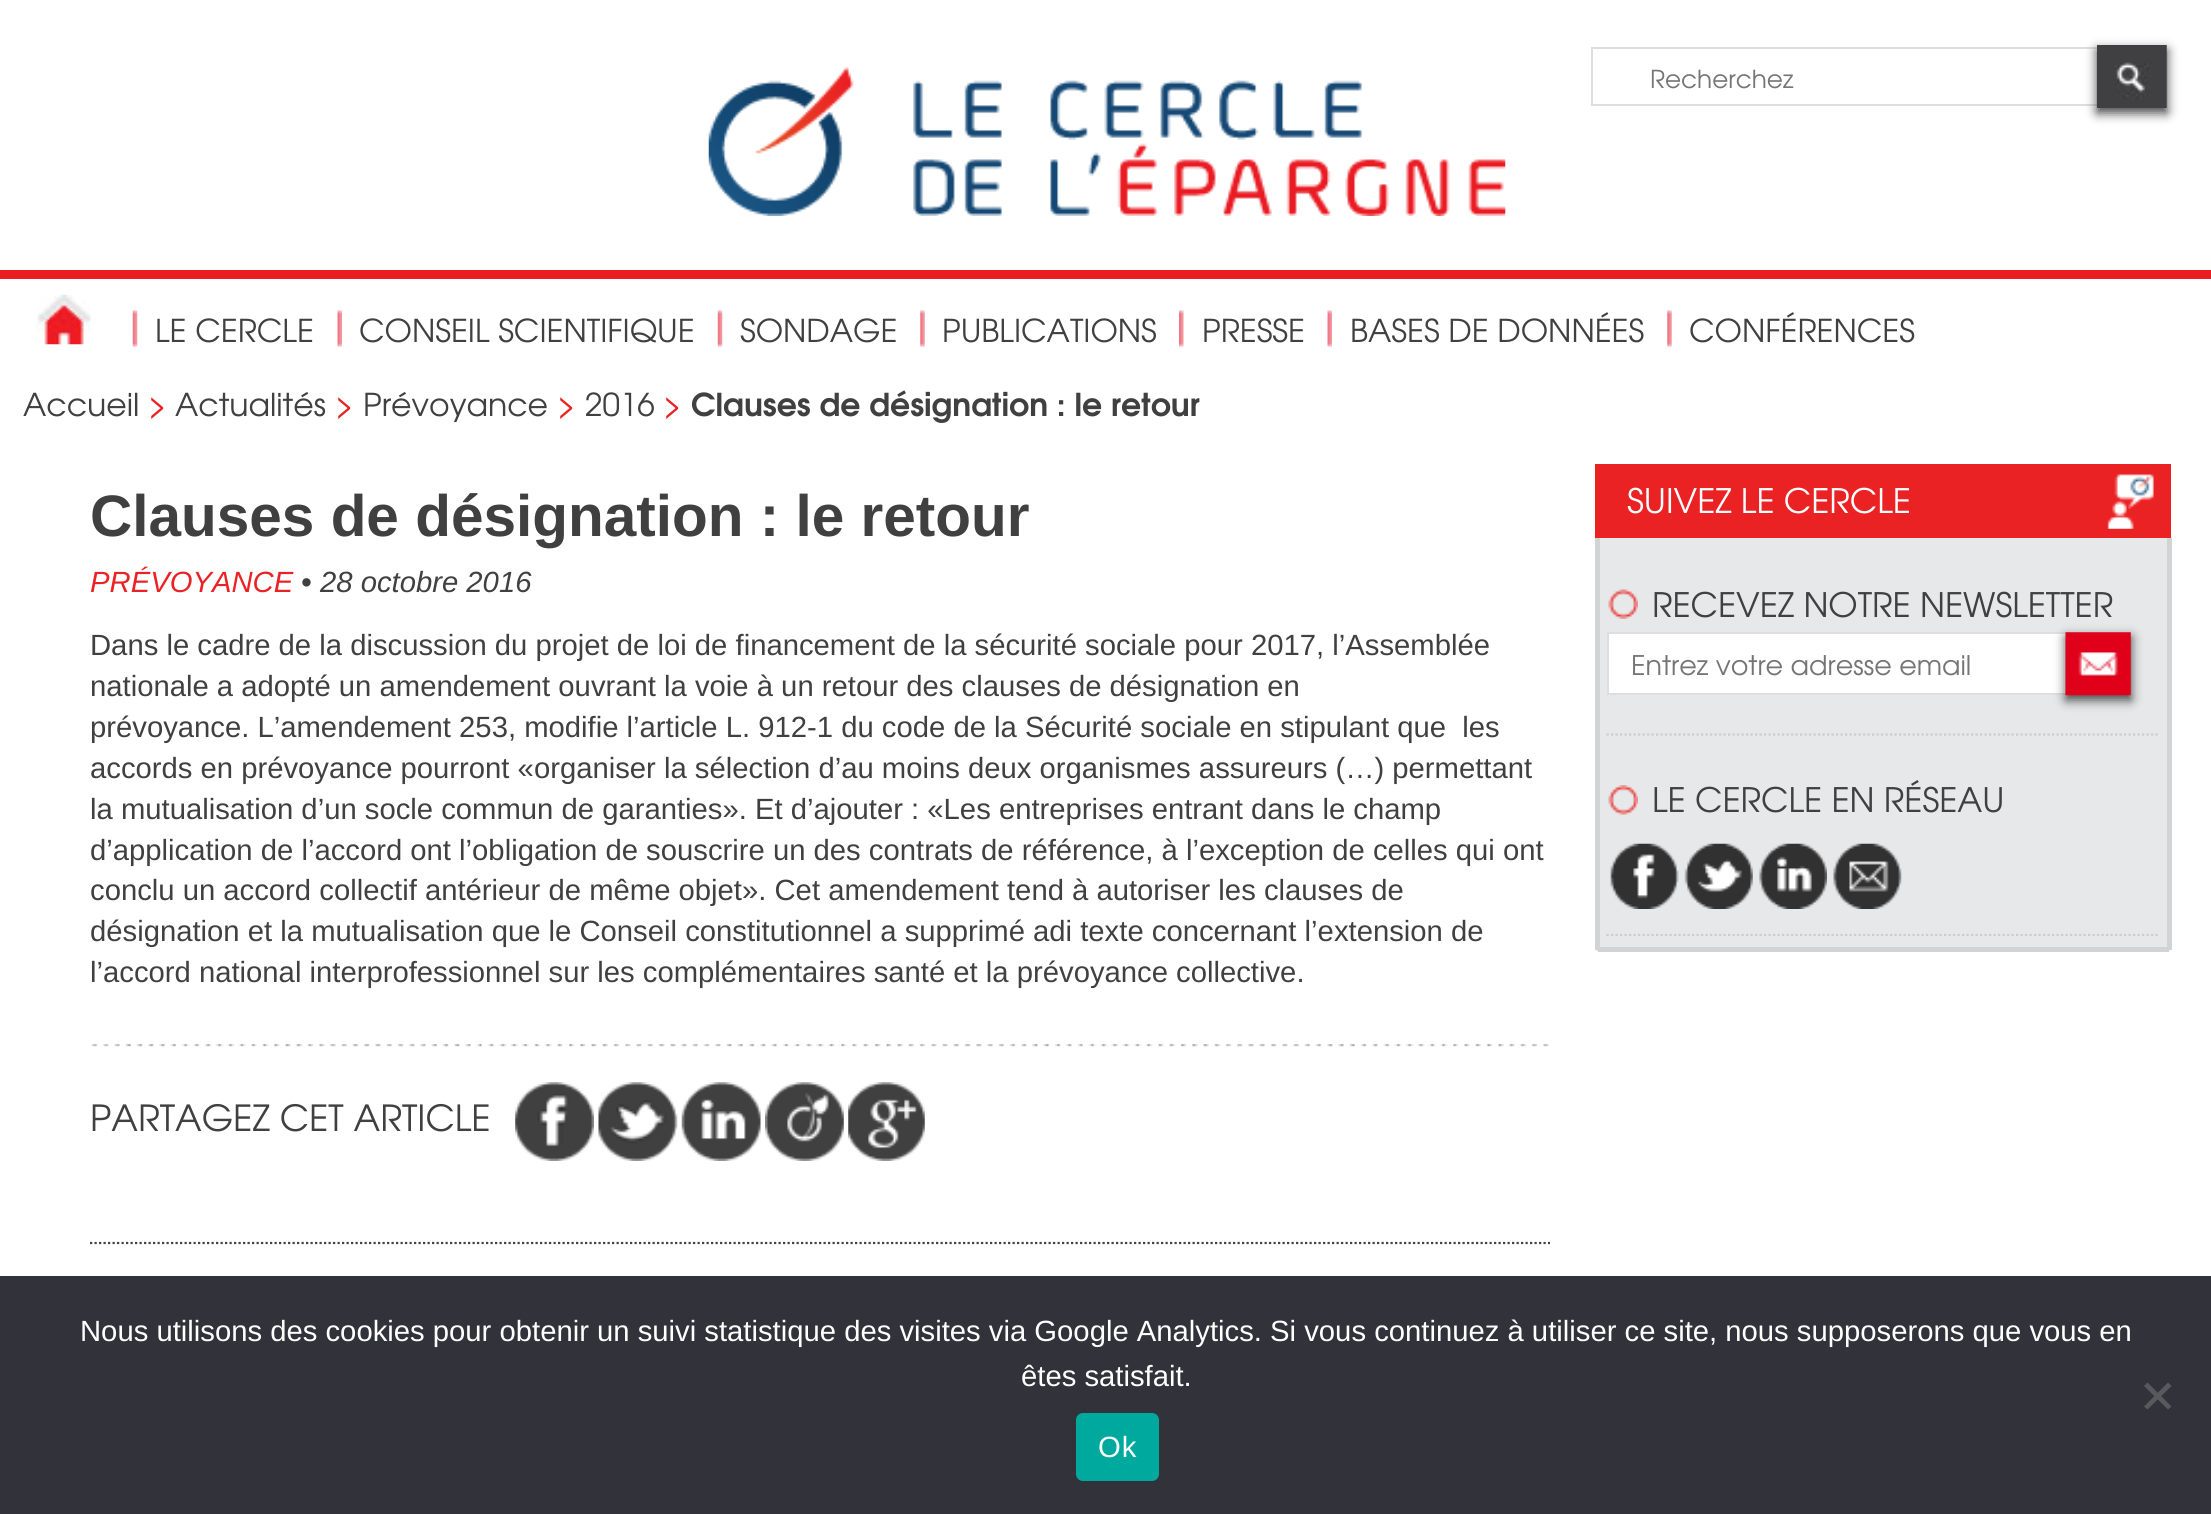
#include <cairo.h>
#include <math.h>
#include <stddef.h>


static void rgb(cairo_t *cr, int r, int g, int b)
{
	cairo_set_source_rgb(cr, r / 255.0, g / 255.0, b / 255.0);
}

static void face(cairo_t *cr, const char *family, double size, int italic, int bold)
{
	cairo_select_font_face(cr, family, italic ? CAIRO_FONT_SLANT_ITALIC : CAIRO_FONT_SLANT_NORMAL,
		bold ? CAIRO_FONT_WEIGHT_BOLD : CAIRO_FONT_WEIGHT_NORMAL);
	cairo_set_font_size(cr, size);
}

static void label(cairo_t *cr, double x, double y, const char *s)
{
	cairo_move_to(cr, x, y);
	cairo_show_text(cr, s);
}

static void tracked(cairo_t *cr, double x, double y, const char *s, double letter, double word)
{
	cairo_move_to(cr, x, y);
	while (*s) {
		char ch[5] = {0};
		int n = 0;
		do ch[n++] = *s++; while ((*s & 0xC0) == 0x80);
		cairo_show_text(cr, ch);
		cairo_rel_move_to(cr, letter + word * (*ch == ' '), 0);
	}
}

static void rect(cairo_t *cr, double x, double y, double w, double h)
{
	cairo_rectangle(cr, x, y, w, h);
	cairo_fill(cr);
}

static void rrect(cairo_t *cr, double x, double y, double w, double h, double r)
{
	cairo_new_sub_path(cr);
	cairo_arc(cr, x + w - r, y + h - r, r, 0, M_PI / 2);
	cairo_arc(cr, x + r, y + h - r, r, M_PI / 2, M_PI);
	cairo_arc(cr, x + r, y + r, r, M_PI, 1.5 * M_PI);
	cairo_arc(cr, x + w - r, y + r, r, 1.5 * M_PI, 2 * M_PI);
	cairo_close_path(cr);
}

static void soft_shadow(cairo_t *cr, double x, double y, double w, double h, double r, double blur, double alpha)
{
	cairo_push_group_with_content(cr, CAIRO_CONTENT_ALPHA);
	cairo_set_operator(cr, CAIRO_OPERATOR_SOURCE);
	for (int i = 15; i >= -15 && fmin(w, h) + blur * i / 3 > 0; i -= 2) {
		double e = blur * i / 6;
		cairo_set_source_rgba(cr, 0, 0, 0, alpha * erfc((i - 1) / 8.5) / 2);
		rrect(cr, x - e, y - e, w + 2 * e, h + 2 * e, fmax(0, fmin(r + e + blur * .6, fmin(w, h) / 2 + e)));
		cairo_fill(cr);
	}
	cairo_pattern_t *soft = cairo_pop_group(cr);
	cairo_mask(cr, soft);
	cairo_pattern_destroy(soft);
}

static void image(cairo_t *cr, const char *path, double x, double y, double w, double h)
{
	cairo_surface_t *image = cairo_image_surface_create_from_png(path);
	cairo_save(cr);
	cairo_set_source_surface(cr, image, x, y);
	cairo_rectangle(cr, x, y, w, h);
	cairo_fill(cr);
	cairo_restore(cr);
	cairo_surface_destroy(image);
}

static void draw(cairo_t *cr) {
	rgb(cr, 255, 255, 255);
	cairo_paint(cr);
	rgb(cr, 236, 28, 35);
	rect(cr, 0, 270, 2211, 9);
	image(cr, "image0.png", 708, 67, 798, 149);
	cairo_rectangle(cr, 1592, 48, 518, 57);
	rgb(cr, 222, 222, 222);
	cairo_stroke(cr);
	face(cr, "TeX Gyre Adventor", 24.75, 0, 0);
	rgb(cr, 117, 117, 117);
	label(cr, 1650, 88, "Recherchez");
	rgb(cr, 68, 68, 68);
	soft_shadow(cr, 2097, 50, 70, 63, 0, 5.5, 1);
	image(cr, "image1.png", 2097, 45, 70, 63);
	image(cr, "image2.png", 36, 294, 55, 51);
	image(cr, "image3.png", 132, 310, 6, 37);
	face(cr, "TeX Gyre Adventor", 31.5, 0, 0);
	rgb(cr, 64, 64, 65);
	label(cr, 155, 342, "LE CERCLE");
	image(cr, "image4.png", 337, 310, 5, 37);
	label(cr, 359, 342, "CONSEIL SCIENTIFIQUE");
	image(cr, "image3.png", 717, 310, 6, 37);
	label(cr, 740, 342, "SONDAGE");
	image(cr, "image5.png", 920, 310, 5, 37);
	label(cr, 942, 342, "PUBLICATIONS");
	image(cr, "image6.png", 1179, 310, 5, 37);
	label(cr, 1202, 342, "PRESSE");
	image(cr, "image4.png", 1327, 310, 5, 37);
	label(cr, 1350, 342, "BASES DE DONNÉES");
	image(cr, "image7.png", 1667, 310, 5, 37);
	label(cr, 1689, 342, "CONFÉRENCES");
	label(cr, 23, 416, "Accueil");
	rgb(cr, 235, 34, 36);
	label(cr, 148, 416, ">");
	rgb(cr, 64, 64, 65);
	label(cr, 175, 416, "Actualités");
	rgb(cr, 235, 34, 36);
	label(cr, 335, 416, ">");
	rgb(cr, 64, 64, 65);
	label(cr, 363, 416, "Prévoyance");
	rgb(cr, 235, 34, 36);
	label(cr, 557, 416, ">");
	rgb(cr, 64, 64, 65);
	label(cr, 585, 416, "2016");
	rgb(cr, 235, 34, 36);
	label(cr, 663, 416, ">");
	face(cr, "TeX Gyre Adventor", 31.5, 0, 1);
	rgb(cr, 64, 64, 65);
	label(cr, 691, 416, "Clauses de désignation : le retour");
	cairo_new_path(cr);
	cairo_move_to(cr, 90, 1243);
	cairo_line_to(cr, 1550, 1243);
	rgb(cr, 68, 68, 68);
	cairo_set_line_width(cr, 2.2);
	cairo_set_dash(cr, (double[]){2.25, 2.25}, 2, 0);
	cairo_stroke(cr);
	face(cr, "Liberation Sans", 58.5, 0, 1);
	rgb(cr, 64, 64, 65);
	label(cr, 90, 536, "Clauses de désignation : le retour");
	face(cr, "Liberation Sans", 29.25, 1, 0);
	rgb(cr, 235, 34, 36);
	label(cr, 90, 592, "PRÉVOYANCE");
	face(cr, "Liberation Sans", 29.25, 1, 1);
	rgb(cr, 64, 64, 65);
	label(cr, 301, 592, "•");
	face(cr, "Liberation Sans", 29.25, 1, 0);
	label(cr, 320, 592, "28 octobre 2016");
	image(cr, "image8.png", 91, 1044, 1458, 3);
	face(cr, "Liberation Sans", 29.25, 0, 0);
	label(cr, 90, 655, "Dans le cadre de la discussion du projet de loi de financement de la sécurité sociale pour 2017, l’Assemblée");
	label(cr, 90, 696, "nationale a adopté un amendement ouvrant la voie à un retour des clauses de désignation en");
	label(cr, 90, 737, "prévoyance. L’amendement 253, modifie l’article L. 912-1 du code de la Sécurité sociale en stipulant que  les");
	label(cr, 90, 778, "accords en prévoyance pourront «organiser la sélection d’au moins deux organismes assureurs (…) permettant");
	label(cr, 90, 819, "la mutualisation d’un socle commun de garanties». Et d’ajouter : «Les entreprises entrant dans le champ");
	label(cr, 90, 860, "d’application de l’accord ont l’obligation de souscrire un des contrats de référence, à l’exception de celles qui ont");
	label(cr, 90, 900, "conclu un accord collectif antérieur de même objet». Cet amendement tend à autoriser les clauses de");
	label(cr, 90, 941, "désignation et la mutualisation que le Conseil constitutionnel a supprimé adi texte concernant l’extension de");
	label(cr, 90, 982, "l’accord national interprofessionnel sur les complémentaires santé et la prévoyance collective.");
	face(cr, "TeX Gyre Adventor", 36, 0, 0);
	label(cr, 90, 1131, "PARTAGEZ CET ARTICLE");
	image(cr, "image9.png", 515, 1082, 79, 79);
	image(cr, "image10.png", 598, 1082, 80, 79);
	image(cr, "image11.png", 681, 1082, 80, 79);
	image(cr, "image12.png", 765, 1082, 79, 79);
	image(cr, "image13.png", 848, 1082, 77, 79);
	rgb(cr, 235, 34, 36);
	rect(cr, 1595, 464, 576, 74);
	image(cr, "image14.png", 2107, 474, 47, 55);
	face(cr, "TeX Gyre Adventor", 33.75, 0, 0);
	rgb(cr, 255, 255, 255);
	label(cr, 1627, 513, "SUIVEZ LE CERCLE");
	rgb(cr, 231, 232, 233);
	cairo_new_path(cr);
	cairo_move_to(cr, 1595, 538);
	cairo_line_to(cr, 2171, 538);
	cairo_line_to(cr, 2171, 947);
	cairo_curve_to(cr, 2171, 950, 2169, 952, 2166, 952);
	cairo_line_to(cr, 1600, 952);
	cairo_curve_to(cr, 1597, 952, 1595, 950, 1595, 947);
	cairo_close_path(cr);
	cairo_fill(cr);
	rgb(cr, 210, 211, 213);
	rect(cr, 2167, 538, 5, 412);
	rect(cr, 1598, 947, 571, 5);
	rect(cr, 1595, 538, 5, 412);
	cairo_new_path(cr);
	cairo_move_to(cr, 1606.5, 734.5);
	cairo_line_to(cr, 2160, 734.5);
	rgb(cr, 204, 204, 204);
	cairo_stroke(cr);
	image(cr, "image15.png", 1608, 589, 30, 30);
	rgb(cr, 64, 64, 65);
	label(cr, 1652, 617, "RECEVEZ NOTRE NEWSLETTER");
	rgb(cr, 255, 255, 255);
	rect(cr, 1609, 634, 457, 59);
	cairo_rectangle(cr, 1608, 633, 461, 61);
	rgb(cr, 222, 222, 222);
	cairo_set_line_width(cr, 2);
	cairo_set_dash(cr, NULL, 0, 0);
	cairo_stroke(cr);
	face(cr, "TeX Gyre Adventor", 27, 0, 0);
	rgb(cr, 117, 117, 117);
	label(cr, 1631, 675, "Entrez votre adresse email");
	rgb(cr, 68, 68, 68);
	soft_shadow(cr, 2066, 637, 65, 63, 0, 5.5, 1);
	image(cr, "image16.png", 2065, 632, 66, 64);
	cairo_new_path(cr);
	cairo_move_to(cr, 1606.5, 935);
	cairo_line_to(cr, 2160, 935);
	rgb(cr, 204, 204, 204);
	cairo_set_line_width(cr, 2.2);
	cairo_set_dash(cr, (double[]){2.25, 2.25}, 2, 0);
	cairo_stroke(cr);
	image(cr, "image17.png", 1608, 785, 30, 30);
	face(cr, "TeX Gyre Adventor", 33.75, 0, 0);
	rgb(cr, 64, 64, 65);
	label(cr, 1652, 812, "LE CERCLE EN RÉSEAU");
	image(cr, "image18.png", 1610, 843, 69, 66);
	image(cr, "image19.png", 1684, 843, 69, 66);
	image(cr, "image20.png", 1759, 843, 68, 66);
	image(cr, "image21.png", 1833, 843, 69, 66);
	rgb(cr, 50, 50, 58);
	rect(cr, 0, 1276, 2211, 238);
	face(cr, "Liberation Sans", 29.25, 0, 0);
	rgb(cr, 255, 255, 255);
	label(cr, 80, 1341, "Nous utilisons des cookies pour obtenir un suivi statistique des visites via Google Analytics. Si vous continuez à utiliser ce site, nous supposerons que vous en");
	label(cr, 1021, 1386, "êtes satisfait.");
	rgb(cr, 89, 89, 93);
	cairo_new_path(cr);
	cairo_move_to(cr, 2168, 1382.5);
	cairo_line_to(cr, 2171.5, 1386);
	cairo_line_to(cr, 2147.5, 1409.5);
	cairo_line_to(cr, 2144, 1406.5);
	cairo_close_path(cr);
	cairo_fill(cr);
	cairo_new_path(cr);
	cairo_move_to(cr, 2144, 1386);
	cairo_line_to(cr, 2147.5, 1382.5);
	cairo_line_to(cr, 2171.5, 1406.5);
	cairo_line_to(cr, 2168, 1409.5);
	cairo_close_path(cr);
	cairo_fill(cr);
	rgb(cr, 0, 169, 157);
	rrect(cr, 1076, 1413, 83, 68, 7);
	cairo_fill(cr);
	rgb(cr, 255, 255, 255);
	tracked(cr, 1098, 1457, "Ok", 1, 0);
}

int main(void) {
	cairo_surface_t *surface = cairo_image_surface_create(CAIRO_FORMAT_RGB24, 2211, 1514);
	cairo_t *cr = cairo_create(surface);
	cairo_font_options_t *options = cairo_font_options_create();
	cairo_font_options_set_hint_metrics(options, CAIRO_HINT_METRICS_OFF);
	cairo_font_options_set_hint_style(options, CAIRO_HINT_STYLE_NONE);
	cairo_set_font_options(cr, options);
	cairo_set_miter_limit(cr, 4);
	draw(cr);
	cairo_surface_write_to_png(surface, "render.png");
	cairo_font_options_destroy(options);
	cairo_destroy(cr);
	cairo_surface_destroy(surface);
	return 0;
}
